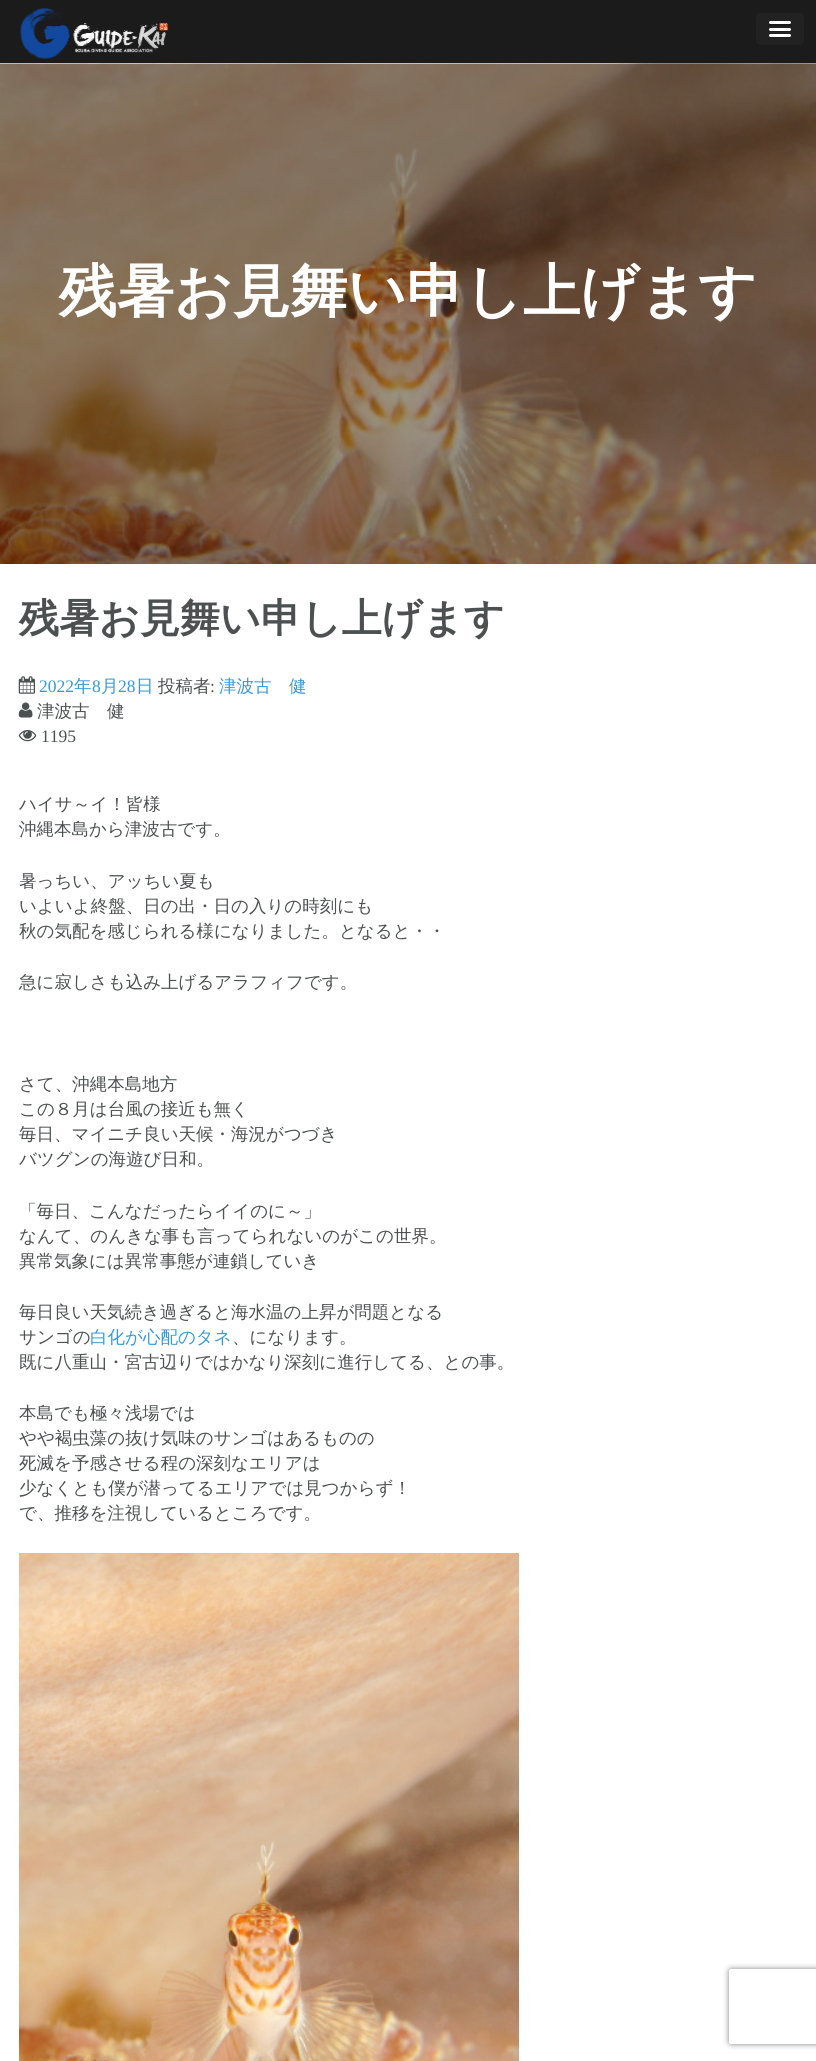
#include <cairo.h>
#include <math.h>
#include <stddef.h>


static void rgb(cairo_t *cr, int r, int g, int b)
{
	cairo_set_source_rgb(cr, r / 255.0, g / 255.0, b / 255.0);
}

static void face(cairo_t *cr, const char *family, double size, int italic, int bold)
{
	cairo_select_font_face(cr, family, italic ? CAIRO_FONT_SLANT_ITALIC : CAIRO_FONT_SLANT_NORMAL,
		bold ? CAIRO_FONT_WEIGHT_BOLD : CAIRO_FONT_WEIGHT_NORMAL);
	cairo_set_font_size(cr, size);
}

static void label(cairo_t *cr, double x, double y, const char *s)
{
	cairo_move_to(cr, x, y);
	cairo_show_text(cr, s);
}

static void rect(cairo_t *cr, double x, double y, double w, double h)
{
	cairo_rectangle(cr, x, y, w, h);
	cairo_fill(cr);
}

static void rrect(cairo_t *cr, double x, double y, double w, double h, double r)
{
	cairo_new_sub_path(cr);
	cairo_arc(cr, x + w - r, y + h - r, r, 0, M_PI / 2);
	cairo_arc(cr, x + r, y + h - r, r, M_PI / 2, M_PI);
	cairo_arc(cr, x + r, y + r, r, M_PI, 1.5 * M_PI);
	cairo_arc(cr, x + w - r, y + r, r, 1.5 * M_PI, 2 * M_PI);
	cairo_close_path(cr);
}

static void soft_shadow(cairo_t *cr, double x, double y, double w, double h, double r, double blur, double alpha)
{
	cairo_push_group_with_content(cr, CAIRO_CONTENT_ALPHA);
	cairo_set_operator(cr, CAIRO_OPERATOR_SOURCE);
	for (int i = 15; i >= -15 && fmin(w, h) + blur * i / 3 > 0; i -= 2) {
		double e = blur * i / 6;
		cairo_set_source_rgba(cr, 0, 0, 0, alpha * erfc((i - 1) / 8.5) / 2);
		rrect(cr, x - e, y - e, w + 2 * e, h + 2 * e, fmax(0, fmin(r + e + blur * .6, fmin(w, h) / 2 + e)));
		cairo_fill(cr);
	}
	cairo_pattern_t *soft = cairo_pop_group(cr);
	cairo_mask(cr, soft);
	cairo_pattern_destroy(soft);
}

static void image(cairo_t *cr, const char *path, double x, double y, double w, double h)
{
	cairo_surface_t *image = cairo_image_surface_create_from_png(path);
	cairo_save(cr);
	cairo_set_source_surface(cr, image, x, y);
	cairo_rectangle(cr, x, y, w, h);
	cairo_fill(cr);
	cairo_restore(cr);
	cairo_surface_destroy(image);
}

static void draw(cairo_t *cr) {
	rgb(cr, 255, 255, 255);
	cairo_paint(cr);
	image(cr, "image0.png", 0, 63, 816, 501);
	rgb(cr, 27, 27, 27);
	rect(cr, 0, 0, 816, 63);
	image(cr, "image1.png", 19, 7, 150, 52);
	rgb(cr, 34, 34, 34);
	rrect(cr, 756, 13, 48, 32, 5);
	cairo_fill(cr);
	rgb(cr, 26, 26, 26);
	cairo_new_path(cr);
	cairo_move_to(cr, 769.5, 23.5);
	cairo_line_to(cr, 769, 25);
	cairo_curve_to(cr, 769.5, 26.5, 772.5, 26, 773.5, 26);
	cairo_line_to(cr, 786.5, 26);
	cairo_curve_to(cr, 787.5, 26, 790.5, 26.5, 791, 25);
	cairo_line_to(cr, 790.5, 23.5);
	cairo_close_path(cr);
	cairo_fill(cr);
	rgb(cr, 255, 255, 255);
	rrect(cr, 769, 21, 22, 3, 1.5);
	cairo_fill(cr);
	rgb(cr, 26, 26, 26);
	cairo_new_path(cr);
	cairo_move_to(cr, 769, 29.5);
	cairo_curve_to(cr, 767.5, 32.5, 773, 32, 773.5, 32);
	cairo_line_to(cr, 786.5, 32);
	cairo_curve_to(cr, 787, 32, 792.5, 32.5, 791, 29.5);
	cairo_curve_to(cr, 790, 30, 770, 30, 769, 29.5);
	cairo_close_path(cr);
	cairo_fill(cr);
	rgb(cr, 255, 255, 255);
	rrect(cr, 769, 28, 22, 3, 1.5);
	cairo_fill(cr);
	rgb(cr, 26, 26, 26);
	cairo_new_path(cr);
	cairo_move_to(cr, 769, 36);
	cairo_curve_to(cr, 768, 38.5, 773, 38, 773.5, 38);
	cairo_line_to(cr, 786.5, 38);
	cairo_curve_to(cr, 787, 38, 792, 38.5, 791, 36);
	cairo_curve_to(cr, 790, 36.5, 770, 36.5, 769, 36);
	cairo_close_path(cr);
	cairo_fill(cr);
	rgb(cr, 255, 255, 255);
	rrect(cr, 769, 34, 22, 3, 1.5);
	cairo_fill(cr);
	face(cr, "WenQuanYi Zen Hei", 57.5, 0, 1);
	label(cr, 59, 311, "残暑お見舞い申し上げます");
	face(cr, "WenQuanYi Zen Hei", 40, 0, 1);
	rgb(cr, 77, 80, 81);
	label(cr, 19, 632, "残暑お見舞い申し上げます");
	image(cr, "image2.png", 18, 676, 17, 18);
	face(cr, "Liberation Serif", 17.5, 0, 0);
	rgb(cr, 52, 152, 219);
	label(cr, 39, 692, "2022");
	face(cr, "WenQuanYi Zen Hei Medium", 17.5, 0, 0);
	label(cr, 74, 692, "年");
	face(cr, "Liberation Serif", 17.5, 0, 0);
	label(cr, 92, 692, "8");
	face(cr, "WenQuanYi Zen Hei Medium", 17.5, 0, 0);
	label(cr, 101, 692, "月");
	face(cr, "Liberation Serif", 17.5, 0, 0);
	label(cr, 118, 692, "28");
	face(cr, "WenQuanYi Zen Hei Medium", 17.5, 0, 0);
	label(cr, 136, 692, "日");
	rgb(cr, 77, 80, 81);
	label(cr, 158, 692, "投稿者");
	face(cr, "Liberation Serif", 17.5, 0, 0);
	label(cr, 210, 692, ":");
	face(cr, "WenQuanYi Zen Hei Medium", 17.5, 0, 0);
	rgb(cr, 52, 152, 219);
	label(cr, 219, 692, "津波古　健");
	image(cr, "image3.png", 18, 702, 15, 16);
	rgb(cr, 77, 80, 81);
	label(cr, 37, 717, "津波古　健");
	image(cr, "image4.png", 18, 730, 19, 12);
	face(cr, "Liberation Serif", 17.5, 0, 0);
	label(cr, 41, 742, "1195");
	face(cr, "WenQuanYi Zen Hei Medium", 17.5, 0, 0);
	label(cr, 19, 810, "ハイサ～イ！皆様");
	label(cr, 19, 835, "沖縄本島から津波古です。");
	label(cr, 19, 887, "暑っちい、アッちい夏も");
	label(cr, 19, 912, "いよいよ終盤、日の出・日の入りの時刻にも");
	label(cr, 19, 937, "秋の気配を感じられる様になりました。となると・・");
	label(cr, 19, 988, "急に寂しさも込み上げるアラフィフです。");
	label(cr, 19, 1090, "さて、沖縄本島地方");
	label(cr, 19, 1115, "この８月は台風の接近も無く");
	label(cr, 19, 1140, "毎日、マイニチ良い天候・海況がつづき");
	label(cr, 19, 1165, "バツグンの海遊び日和。");
	label(cr, 19, 1217, "「毎日、こんなだったらイイのに～」");
	label(cr, 19, 1242, "なんて、のんきな事も言ってられないのがこの世界。");
	label(cr, 19, 1267, "異常気象には異常事態が連鎖していき");
	label(cr, 19, 1318, "毎日良い天気続き過ぎると海水温の上昇が問題となる");
	label(cr, 19, 1343, "サンゴの");
	rgb(cr, 52, 152, 219);
	label(cr, 90, 1343, "白化が心配のタネ");
	rgb(cr, 77, 80, 81);
	label(cr, 232, 1343, "、になります。");
	label(cr, 19, 1368, "既に八重山・宮古辺りではかなり深刻に進行してる、との事。");
	label(cr, 19, 1419, "本島でも極々浅場では");
	label(cr, 19, 1444, "やや褐虫藻の抜け気味のサンゴはあるものの");
	label(cr, 19, 1469, "死滅を予感させる程の深刻なエリアは");
	label(cr, 19, 1494, "少なくとも僕が潜ってるエリアでは見つからず！");
	label(cr, 19, 1519, "で、推移を注視しているところです。");
	image(cr, "image5.png", 19, 1553, 500, 508);
	cairo_save(cr);
	cairo_set_fill_rule(cr, CAIRO_FILL_RULE_EVEN_ODD);
	cairo_new_path(cr);
	cairo_move_to(cr, 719, 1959);
	cairo_line_to(cr, 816, 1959);
	cairo_line_to(cr, 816, 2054);
	cairo_line_to(cr, 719, 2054);
	cairo_close_path(cr);
	cairo_move_to(cr, 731.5, 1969);
	cairo_line_to(cr, 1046.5, 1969);
	cairo_curve_to(cr, 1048, 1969, 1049, 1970, 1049, 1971.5);
	cairo_line_to(cr, 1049, 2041.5);
	cairo_curve_to(cr, 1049, 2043, 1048, 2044, 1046.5, 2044);
	cairo_line_to(cr, 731.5, 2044);
	cairo_curve_to(cr, 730, 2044, 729, 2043, 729, 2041.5);
	cairo_line_to(cr, 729, 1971.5);
	cairo_curve_to(cr, 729, 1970, 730, 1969, 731.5, 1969);
	cairo_close_path(cr);
	cairo_clip(cr);
	rgb(cr, 128, 128, 128);
	soft_shadow(cr, 729, 1969, 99, 75, 2.5, 3, 1);
	cairo_restore(cr);
}

int main(void) {
	cairo_surface_t *surface = cairo_image_surface_create(CAIRO_FORMAT_RGB24, 816, 2061);
	cairo_t *cr = cairo_create(surface);
	cairo_font_options_t *options = cairo_font_options_create();
	cairo_font_options_set_hint_metrics(options, CAIRO_HINT_METRICS_OFF);
	cairo_font_options_set_hint_style(options, CAIRO_HINT_STYLE_NONE);
	cairo_set_font_options(cr, options);
	cairo_set_miter_limit(cr, 4);
	draw(cr);
	cairo_surface_write_to_png(surface, "render.png");
	cairo_font_options_destroy(options);
	cairo_destroy(cr);
	cairo_surface_destroy(surface);
	return 0;
}
